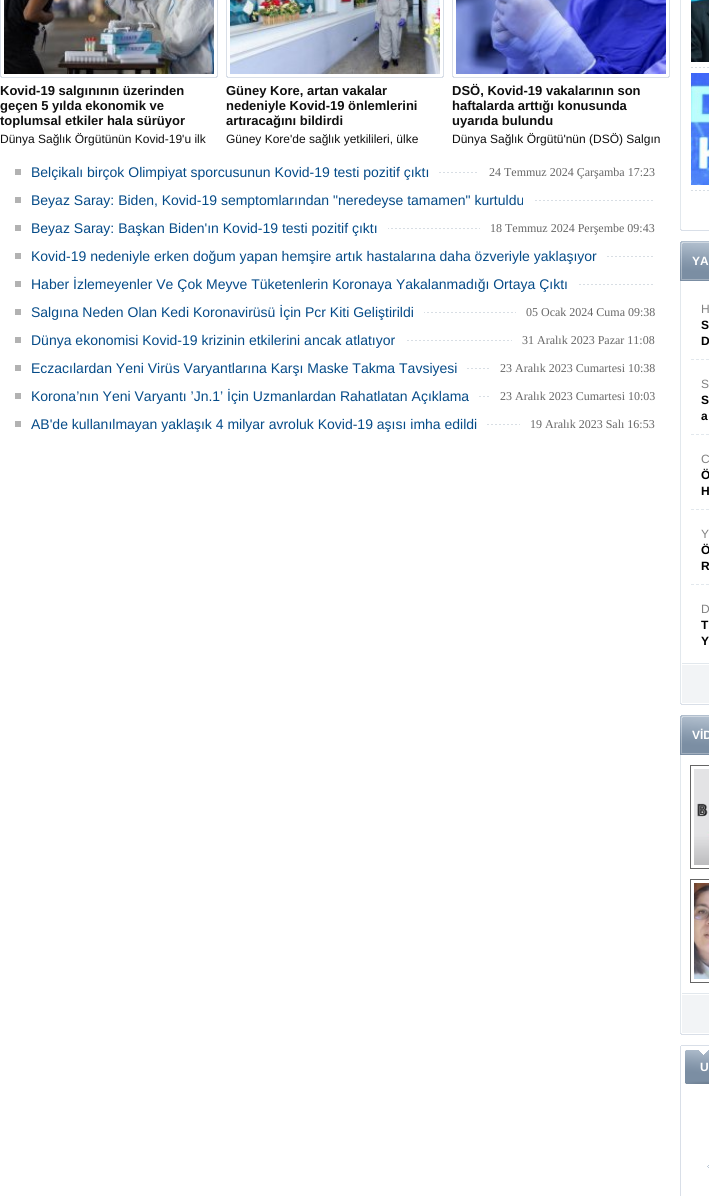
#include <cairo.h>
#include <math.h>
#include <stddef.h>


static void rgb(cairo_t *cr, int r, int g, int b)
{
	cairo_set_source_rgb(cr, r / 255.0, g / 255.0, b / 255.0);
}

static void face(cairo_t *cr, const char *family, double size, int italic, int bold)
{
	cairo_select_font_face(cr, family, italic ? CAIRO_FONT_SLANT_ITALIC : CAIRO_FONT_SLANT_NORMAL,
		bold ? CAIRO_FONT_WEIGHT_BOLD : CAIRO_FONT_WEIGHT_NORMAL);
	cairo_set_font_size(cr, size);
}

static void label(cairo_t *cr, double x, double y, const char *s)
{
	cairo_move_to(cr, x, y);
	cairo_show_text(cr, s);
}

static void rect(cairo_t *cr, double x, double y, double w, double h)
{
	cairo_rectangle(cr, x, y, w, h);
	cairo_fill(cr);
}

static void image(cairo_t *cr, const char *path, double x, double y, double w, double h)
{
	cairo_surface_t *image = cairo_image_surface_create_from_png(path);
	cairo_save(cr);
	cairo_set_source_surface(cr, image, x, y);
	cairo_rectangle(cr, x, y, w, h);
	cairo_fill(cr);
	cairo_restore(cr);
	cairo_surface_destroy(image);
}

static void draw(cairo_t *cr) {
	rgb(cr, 255, 255, 255);
	cairo_paint(cr);
	image(cr, "image0.png", 0, 0, 218, 78);
	image(cr, "image1.png", 4, 0, 210, 74);
	face(cr, "Liberation Sans", 13, 0, 1);
	rgb(cr, 15, 15, 15);
	label(cr, 0, 95, "Kovid-19 salgınının üzerinden");
	label(cr, 0, 110, "geçen 5 yılda ekonomik ve");
	label(cr, 0, 125, "toplumsal etkiler hala sürüyor");
	face(cr, "Liberation Sans", 12, 0, 0);
	label(cr, 0, 143, "Dünya Sağlık Örgütünün Kovid-19'u ilk");
	image(cr, "image0.png", 226, 0, 218, 78);
	image(cr, "image2.png", 230, 0, 210, 74);
	face(cr, "Liberation Sans", 13, 0, 1);
	label(cr, 226, 95, "Güney Kore, artan vakalar");
	label(cr, 226, 110, "nedeniyle Kovid-19 önlemlerini");
	label(cr, 226, 125, "artıracağını bildirdi");
	face(cr, "Liberation Sans", 12, 0, 0);
	label(cr, 226, 143, "Güney Kore'de sağlık yetkilileri, ülke");
	image(cr, "image0.png", 452, 0, 218, 78);
	image(cr, "image3.png", 456, 0, 210, 74);
	face(cr, "Liberation Sans", 13, 0, 1);
	label(cr, 452, 95, "DSÖ, Kovid-19 vakalarının son");
	label(cr, 452, 110, "haftalarda arttığı konusunda");
	label(cr, 452, 125, "uyarıda bulundu");
	face(cr, "Liberation Sans", 12, 0, 0);
	label(cr, 452, 143, "Dünya Sağlık Örgütü'nün (DSÖ) Salgın");
	image(cr, "image4.png", 439, 172, 38, 1);
	rgb(cr, 178, 178, 178);
	rect(cr, 15, 169, 6, 6);
	face(cr, "Liberation Sans", 14, 0, 0);
	rgb(cr, 5, 75, 136);
	label(cr, 31, 177, "Belçikalı birçok Olimpiyat sporcusunun Kovid-19 testi pozitif çıktı");
	face(cr, "Liberation Serif", 12, 0, 0);
	rgb(cr, 102, 102, 102);
	label(cr, 489, 176, "24 Temmuz 2024 Çarşamba 17:23");
	image(cr, "image5.png", 535, 200, 118, 1);
	rgb(cr, 178, 178, 178);
	rect(cr, 15, 197, 6, 6);
	face(cr, "Liberation Sans", 14, 0, 0);
	rgb(cr, 5, 75, 136);
	label(cr, 31, 205, "Beyaz Saray: Biden, Kovid-19 semptomlarından \"neredeyse tamamen\" kurtuldu");
	image(cr, "image6.png", 388, 228, 92, 1);
	rgb(cr, 178, 178, 178);
	rect(cr, 15, 225, 6, 6);
	rgb(cr, 5, 75, 136);
	label(cr, 31, 233, "Beyaz Saray: Başkan Biden'ın Kovid-19 testi pozitif çıktı");
	face(cr, "Liberation Serif", 12, 0, 0);
	rgb(cr, 102, 102, 102);
	label(cr, 490, 232, "18 Temmuz 2024 Perşembe 09:43");
	image(cr, "image7.png", 607, 256, 46, 1);
	rgb(cr, 178, 178, 178);
	rect(cr, 15, 253, 6, 6);
	face(cr, "Liberation Sans", 14, 0, 0);
	rgb(cr, 5, 75, 136);
	label(cr, 31, 261, "Kovid-19 nedeniyle erken doğum yapan hemşire artık hastalarına daha özveriyle yaklaşıyor");
	image(cr, "image8.png", 579, 284, 74, 1);
	rgb(cr, 178, 178, 178);
	rect(cr, 15, 281, 6, 6);
	rgb(cr, 5, 75, 136);
	label(cr, 31, 289, "Haber İzlemeyenler Ve Çok Meyve Tüketenlerin Koronaya Yakalanmadığı Ortaya Çıktı");
	image(cr, "image6.png", 424, 312, 92, 1);
	rgb(cr, 178, 178, 178);
	rect(cr, 15, 309, 6, 6);
	rgb(cr, 5, 75, 136);
	label(cr, 31, 317, "Salgına Neden Olan Kedi Koronavirüsü İçin Pcr Kiti Geliştirildi");
	face(cr, "Liberation Serif", 12, 0, 0);
	rgb(cr, 102, 102, 102);
	label(cr, 526, 316, "05 Ocak 2024 Cuma 09:38");
	image(cr, "image9.png", 407, 340, 105, 1);
	rgb(cr, 178, 178, 178);
	rect(cr, 15, 337, 6, 6);
	face(cr, "Liberation Sans", 14, 0, 0);
	rgb(cr, 5, 75, 136);
	label(cr, 31, 345, "Dünya ekonomisi Kovid-19 krizinin etkilerini ancak atlatıyor");
	face(cr, "Liberation Serif", 12, 0, 0);
	rgb(cr, 102, 102, 102);
	label(cr, 522, 344, "31 Aralık 2023 Pazar 11:08");
	image(cr, "image10.png", 467, 368, 22, 1);
	rgb(cr, 178, 178, 178);
	rect(cr, 15, 365, 6, 6);
	face(cr, "Liberation Sans", 14, 0, 0);
	rgb(cr, 5, 75, 136);
	label(cr, 31, 373, "Eczacılardan Yeni Virüs Varyantlarına Karşı Maske Takma Tavsiyesi");
	face(cr, "Liberation Serif", 12, 0, 0);
	rgb(cr, 102, 102, 102);
	label(cr, 500, 372, "23 Aralık 2023 Cumartesi 10:38");
	image(cr, "image11.png", 479, 396, 10, 1);
	rgb(cr, 178, 178, 178);
	rect(cr, 15, 393, 6, 6);
	face(cr, "Liberation Sans", 14, 0, 0);
	rgb(cr, 5, 75, 136);
	label(cr, 31, 401, "Korona’nın Yeni Varyantı ’Jn.1’ İçin Uzmanlardan Rahatlatan Açıklama");
	face(cr, "Liberation Serif", 12, 0, 0);
	rgb(cr, 102, 102, 102);
	label(cr, 500, 400, "23 Aralık 2023 Cumartesi 10:03");
	image(cr, "image12.png", 487, 424, 33, 1);
	rgb(cr, 178, 178, 178);
	rect(cr, 15, 421, 6, 6);
	face(cr, "Liberation Sans", 14, 0, 0);
	rgb(cr, 5, 75, 136);
	label(cr, 31, 429, "AB'de kullanılmayan yaklaşık 4 milyar avroluk Kovid-19 aşısı imha edildi");
	face(cr, "Liberation Serif", 12, 0, 0);
	rgb(cr, 102, 102, 102);
	label(cr, 530, 428, "19 Aralık 2023 Salı 16:53");
	rgb(cr, 226, 232, 237);
	rect(cr, 680, 0, 1, 229);
	image(cr, "image13.png", 691, 0, 18, 62);
	image(cr, "image14.png", 691, 67, 18, 1);
	image(cr, "image15.png", 691, 73, 18, 112);
	image(cr, "image14.png", 691, 190, 18, 1);
	image(cr, "image16.png", 680, 229, 29, 2);
	image(cr, "image17.png", 680, 241, 29, 40);
	face(cr, "Liberation Sans", 12, 0, 1);
	rgb(cr, 255, 255, 255);
	label(cr, 692, 265, "YA");
	rgb(cr, 226, 232, 237);
	rect(cr, 680, 281, 1, 422);
	image(cr, "image18.png", 691, 359, 18, 1);
	face(cr, "Liberation Sans", 12, 0, 0);
	rgb(cr, 129, 129, 129);
	label(cr, 701, 313, "H");
	face(cr, "Liberation Sans", 12, 0, 1);
	rgb(cr, 0, 0, 0);
	label(cr, 701, 329, "S");
	label(cr, 701, 345, "D");
	image(cr, "image18.png", 691, 434, 18, 1);
	face(cr, "Liberation Sans", 12, 0, 0);
	rgb(cr, 129, 129, 129);
	label(cr, 701, 388, "S");
	face(cr, "Liberation Sans", 12, 0, 1);
	rgb(cr, 0, 0, 0);
	label(cr, 701, 404, "S");
	label(cr, 701, 420, "a");
	image(cr, "image18.png", 691, 509, 18, 1);
	face(cr, "Liberation Sans", 12, 0, 0);
	rgb(cr, 129, 129, 129);
	label(cr, 701, 463, "C");
	face(cr, "Liberation Sans", 12, 0, 1);
	rgb(cr, 0, 0, 0);
	label(cr, 701, 479, "Ö");
	label(cr, 701, 495, "H");
	image(cr, "image18.png", 691, 584, 18, 1);
	face(cr, "Liberation Sans", 12, 0, 0);
	rgb(cr, 129, 129, 129);
	label(cr, 701, 538, "Y");
	face(cr, "Liberation Sans", 12, 0, 1);
	rgb(cr, 0, 0, 0);
	label(cr, 701, 554, "Ö");
	label(cr, 701, 570, "R");
	face(cr, "Liberation Sans", 12, 0, 0);
	rgb(cr, 129, 129, 129);
	label(cr, 701, 613, "D");
	face(cr, "Liberation Sans", 12, 0, 1);
	rgb(cr, 0, 0, 0);
	label(cr, 701, 629, "T");
	label(cr, 701, 645, "Y");
	image(cr, "image19.png", 682, 663, 27, 40);
	image(cr, "image16.png", 680, 703, 29, 2);
	image(cr, "image17.png", 680, 715, 29, 40);
	rgb(cr, 255, 255, 255);
	label(cr, 692, 739, "VİD");
	rgb(cr, 226, 232, 237);
	rect(cr, 680, 755, 1, 278);
	cairo_rectangle(cr, 690.5, 765.5, 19, 103);
	rgb(cr, 101, 101, 101);
	cairo_set_line_width(cr, 1);
	cairo_stroke(cr);
	image(cr, "image20.png", 694, 769, 15, 96);
	cairo_rectangle(cr, 690.5, 879.5, 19, 103);
	cairo_stroke(cr);
	image(cr, "image21.png", 694, 883, 15, 96);
	image(cr, "image19.png", 682, 993, 27, 40);
	image(cr, "image16.png", 680, 1033, 29, 2);
	image(cr, "image22.png", 680, 1045, 29, 151);
	rgb(cr, 255, 255, 255);
	label(cr, 700, 1071, "U");
}

int main(void) {
	cairo_surface_t *surface = cairo_image_surface_create(CAIRO_FORMAT_RGB24, 709, 1196);
	cairo_t *cr = cairo_create(surface);
	cairo_font_options_t *options = cairo_font_options_create();
	cairo_font_options_set_hint_metrics(options, CAIRO_HINT_METRICS_OFF);
	cairo_font_options_set_hint_style(options, CAIRO_HINT_STYLE_NONE);
	cairo_set_font_options(cr, options);
	cairo_set_miter_limit(cr, 4);
	draw(cr);
	cairo_surface_write_to_png(surface, "render.png");
	cairo_font_options_destroy(options);
	cairo_destroy(cr);
	cairo_surface_destroy(surface);
	return 0;
}
